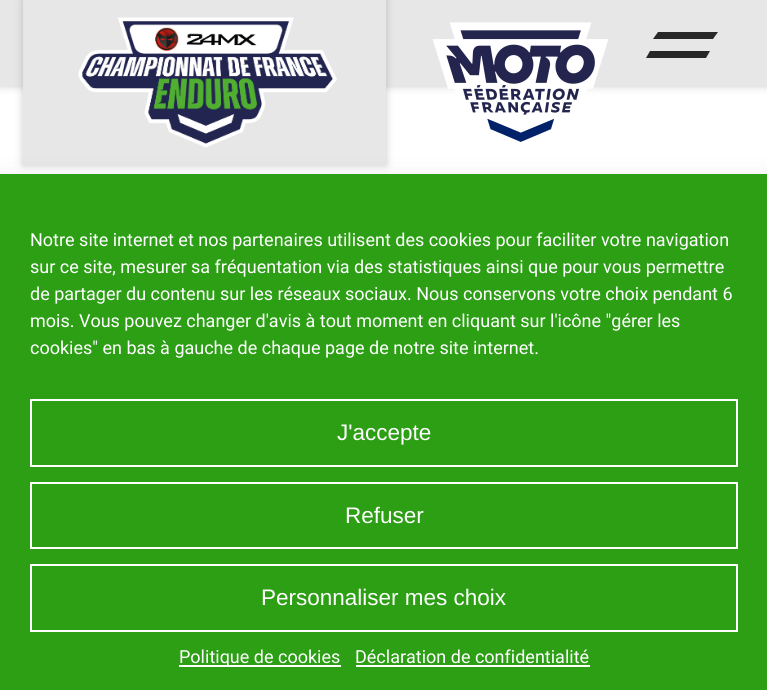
#include <cairo.h>
#include <math.h>
#include <stddef.h>


static void rgb(cairo_t *cr, int r, int g, int b)
{
	cairo_set_source_rgb(cr, r / 255.0, g / 255.0, b / 255.0);
}

static void face(cairo_t *cr, const char *family, double size, int italic, int bold)
{
	cairo_select_font_face(cr, family, italic ? CAIRO_FONT_SLANT_ITALIC : CAIRO_FONT_SLANT_NORMAL,
		bold ? CAIRO_FONT_WEIGHT_BOLD : CAIRO_FONT_WEIGHT_NORMAL);
	cairo_set_font_size(cr, size);
}

static void label(cairo_t *cr, double x, double y, const char *s)
{
	cairo_move_to(cr, x, y);
	cairo_show_text(cr, s);
}

static void rect(cairo_t *cr, double x, double y, double w, double h)
{
	cairo_rectangle(cr, x, y, w, h);
	cairo_fill(cr);
}

static void rrect(cairo_t *cr, double x, double y, double w, double h, double r)
{
	cairo_new_sub_path(cr);
	cairo_arc(cr, x + w - r, y + h - r, r, 0, M_PI / 2);
	cairo_arc(cr, x + r, y + h - r, r, M_PI / 2, M_PI);
	cairo_arc(cr, x + r, y + r, r, M_PI, 1.5 * M_PI);
	cairo_arc(cr, x + w - r, y + r, r, 1.5 * M_PI, 2 * M_PI);
	cairo_close_path(cr);
}

static void soft_shadow(cairo_t *cr, double x, double y, double w, double h, double r, double blur, double alpha)
{
	cairo_push_group_with_content(cr, CAIRO_CONTENT_ALPHA);
	cairo_set_operator(cr, CAIRO_OPERATOR_SOURCE);
	for (int i = 15; i >= -15 && fmin(w, h) + blur * i / 3 > 0; i -= 2) {
		double e = blur * i / 6;
		cairo_set_source_rgba(cr, 0, 0, 0, alpha * erfc((i - 1) / 8.5) / 2);
		rrect(cr, x - e, y - e, w + 2 * e, h + 2 * e, fmax(0, fmin(r + e + blur * .6, fmin(w, h) / 2 + e)));
		cairo_fill(cr);
	}
	cairo_pattern_t *soft = cairo_pop_group(cr);
	cairo_mask(cr, soft);
	cairo_pattern_destroy(soft);
}

static void image(cairo_t *cr, const char *path, double x, double y, double w, double h)
{
	cairo_surface_t *image = cairo_image_surface_create_from_png(path);
	cairo_save(cr);
	cairo_set_source_surface(cr, image, x, y);
	cairo_rectangle(cr, x, y, w, h);
	cairo_fill(cr);
	cairo_restore(cr);
	cairo_surface_destroy(image);
}

static void draw(cairo_t *cr) {
	rgb(cr, 255, 255, 255);
	cairo_paint(cr);
	rgb(cr, 40, 40, 40);
	soft_shadow(cr, 0, 0, 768, 86, 0, 4, 0.25);
	rgb(cr, 231, 231, 231);
	rect(cr, 0, 0, 767, 86);
	rgb(cr, 40, 40, 40);
	cairo_new_path(cr);
	cairo_move_to(cr, 658, 32);
	cairo_line_to(cr, 718, 32);
	cairo_line_to(cr, 713, 39);
	cairo_line_to(cr, 653, 39);
	cairo_close_path(cr);
	cairo_fill(cr);
	cairo_new_path(cr);
	cairo_move_to(cr, 650, 51);
	cairo_line_to(cr, 710, 51);
	cairo_line_to(cr, 706, 58);
	cairo_line_to(cr, 646, 58);
	cairo_close_path(cr);
	cairo_fill(cr);
	rgb(cr, 40, 40, 40);
	soft_shadow(cr, 23, 0, 363, 165, 0, 4, 0.25);
	rgb(cr, 231, 231, 231);
	rect(cr, 23, 0, 363, 165);
	image(cr, "image0.png", 78, 17, 259, 131);
	image(cr, "image1.png", 432, 22, 177, 120);
	rgb(cr, 0, 0, 0);
	soft_shadow(cr, 0, 189, 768, 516, 0, 15, 0.19);
	rgb(cr, 44, 159, 21);
	rect(cr, 0, 174, 767, 516);
	face(cr, "Roboto", 18, 0, 0);
	rgb(cr, 255, 255, 255);
	label(cr, 30, 246, "Notre site internet et nos partenaires utilisent des cookies pour faciliter votre navigation");
	label(cr, 30, 273, "sur ce site, mesurer sa fréquentation via des statistiques ainsi que pour vous permettre");
	label(cr, 30, 300, "de partager du contenu sur les réseaux sociaux. Nous conservons votre choix pendant 6");
	label(cr, 30, 327, "mois. Vous pouvez changer d'avis à tout moment en cliquant sur l'icône \"gérer les");
	label(cr, 30, 354, "cookies\" en bas à gauche de chaque page de notre site internet.");
	cairo_rectangle(cr, 31, 400, 706, 66);
	cairo_stroke(cr);
	face(cr, "Liberation Sans", 22.5, 0, 0);
	label(cr, 337, 440, "J'accepte");
	cairo_rectangle(cr, 31, 483, 706, 65);
	cairo_stroke(cr);
	label(cr, 345, 523, "Refuser");
	cairo_rectangle(cr, 31, 565, 706, 66);
	cairo_stroke(cr);
	label(cr, 261, 605, "Personnaliser mes choix");
	rect(cr, 179, 665, 162, 2);
	face(cr, "Roboto", 18, 0, 0);
	label(cr, 179, 663, "Politique de cookies");
	label(cr, 355, 663, "Déclaration de confidentialité");
	rect(cr, 356, 665, 234, 2);
}

int main(void) {
	cairo_surface_t *surface = cairo_image_surface_create(CAIRO_FORMAT_RGB24, 767, 690);
	cairo_t *cr = cairo_create(surface);
	cairo_font_options_t *options = cairo_font_options_create();
	cairo_font_options_set_hint_metrics(options, CAIRO_HINT_METRICS_OFF);
	cairo_font_options_set_hint_style(options, CAIRO_HINT_STYLE_NONE);
	cairo_set_font_options(cr, options);
	cairo_set_miter_limit(cr, 4);
	draw(cr);
	cairo_surface_write_to_png(surface, "render.png");
	cairo_font_options_destroy(options);
	cairo_destroy(cr);
	cairo_surface_destroy(surface);
	return 0;
}
